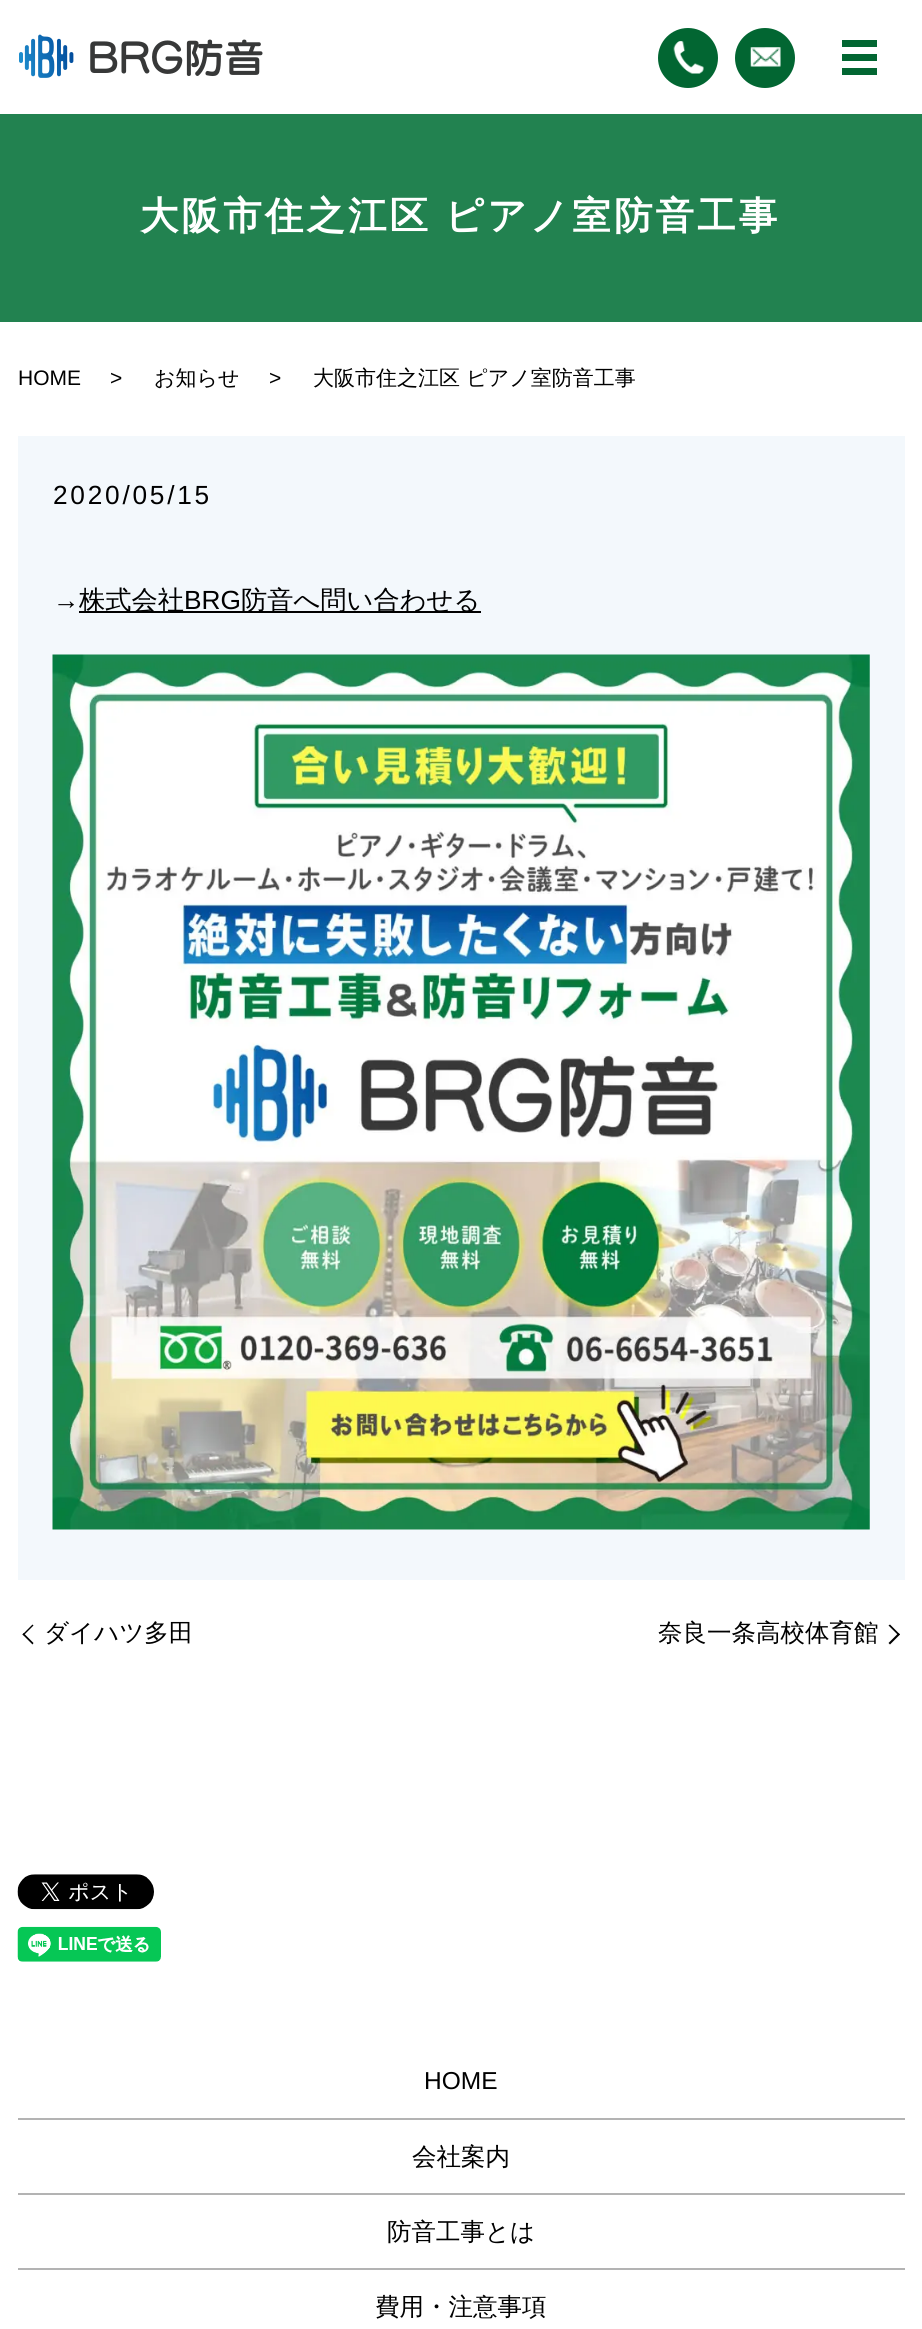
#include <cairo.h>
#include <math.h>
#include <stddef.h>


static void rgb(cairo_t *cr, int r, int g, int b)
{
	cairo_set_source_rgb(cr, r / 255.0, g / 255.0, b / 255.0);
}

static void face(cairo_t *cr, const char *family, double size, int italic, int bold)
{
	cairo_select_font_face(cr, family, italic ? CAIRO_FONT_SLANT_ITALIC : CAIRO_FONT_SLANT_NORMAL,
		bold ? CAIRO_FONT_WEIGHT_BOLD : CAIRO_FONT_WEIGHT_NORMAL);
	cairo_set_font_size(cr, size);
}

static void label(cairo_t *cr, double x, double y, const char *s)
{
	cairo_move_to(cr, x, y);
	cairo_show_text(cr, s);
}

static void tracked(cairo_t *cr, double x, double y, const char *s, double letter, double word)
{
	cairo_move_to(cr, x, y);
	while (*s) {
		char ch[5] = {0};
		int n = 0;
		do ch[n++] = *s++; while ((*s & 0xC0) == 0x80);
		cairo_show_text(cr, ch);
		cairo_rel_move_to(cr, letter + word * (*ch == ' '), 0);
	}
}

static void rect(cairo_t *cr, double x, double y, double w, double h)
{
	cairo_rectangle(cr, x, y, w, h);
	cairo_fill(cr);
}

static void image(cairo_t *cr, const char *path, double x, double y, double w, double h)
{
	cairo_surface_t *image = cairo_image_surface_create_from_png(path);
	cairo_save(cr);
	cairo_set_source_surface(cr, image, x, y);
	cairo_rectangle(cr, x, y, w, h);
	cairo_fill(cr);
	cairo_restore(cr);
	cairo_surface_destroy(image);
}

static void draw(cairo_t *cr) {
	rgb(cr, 255, 255, 255);
	cairo_paint(cr);
	image(cr, "image0.png", 19, 34, 244, 44);
	rgb(cr, 2, 102, 50);
	cairo_arc(cr, 688, 58, 30, 0, 2 * M_PI);
	cairo_fill(cr);
	image(cr, "image1.png", 673, 41, 31, 33);
	cairo_arc(cr, 765, 58, 30, 0, 2 * M_PI);
	cairo_fill(cr);
	image(cr, "image2.png", 750, 47, 31, 20);
	rect(cr, 842, 40, 35, 7);
	rect(cr, 842, 54, 35, 7);
	rect(cr, 842, 68, 35, 7);
	rgb(cr, 34, 130, 80);
	rect(cr, 0, 114, 922, 208);
	face(cr, "WenQuanYi Zen Hei", 38.5, 0, 1);
	rgb(cr, 255, 255, 255);
	tracked(cr, 140, 229, "大阪市住之江区 ピアノ室防音工事", 3.1, -1);
	face(cr, "Liberation Sans", 21, 0, 0);
	rgb(cr, 0, 0, 0);
	label(cr, 18, 385, "HOME");
	label(cr, 110, 385, ">");
	face(cr, "WenQuanYi Zen Hei Medium", 21, 0, 0);
	label(cr, 154, 385, "お知らせ");
	face(cr, "Liberation Sans", 21, 0, 0);
	label(cr, 269, 385, ">");
	face(cr, "WenQuanYi Zen Hei Medium", 21, 0, 0);
	label(cr, 313, 385, "大阪市住之江区 ピアノ室防音工事");
	rgb(cr, 243, 248, 252);
	rect(cr, 18, 436, 887, 1144);
	face(cr, "Liberation Sans", 26.25, 0, 0);
	rgb(cr, 0, 0, 0);
	tracked(cr, 53, 504, "2020/05/15", 2.75, 0);
	label(cr, 53, 609, "→");
	rect(cr, 79, 611, 402, 2);
	face(cr, "WenQuanYi Zen Hei Medium", 26.25, 0, 0);
	label(cr, 79, 609, "株式会社");
	face(cr, "Liberation Sans", 26.25, 0, 0);
	label(cr, 184, 609, "BRG");
	face(cr, "WenQuanYi Zen Hei Medium", 26.25, 0, 0);
	label(cr, 241, 609, "防音へ問い合わせる");
	image(cr, "image3.png", 52, 654, 818, 876);
	cairo_new_path(cr);
	cairo_move_to(cr, 22.5, 1634.5);
	cairo_line_to(cr, 32.5, 1624.5);
	cairo_line_to(cr, 33.5, 1625.5);
	cairo_line_to(cr, 23.5, 1635.5);
	cairo_close_path(cr);
	cairo_fill(cr);
	face(cr, "WenQuanYi Zen Hei Medium", 24.5, 0, 0);
	label(cr, 44, 1641, "ダイハツ多田");
	cairo_new_path(cr);
	cairo_move_to(cr, 32.5, 1644.5);
	cairo_line_to(cr, 22.5, 1634.5);
	cairo_line_to(cr, 23.5, 1633);
	cairo_line_to(cr, 33.5, 1643);
	cairo_close_path(cr);
	cairo_fill(cr);
	label(cr, 658, 1641, "奈良一条高校体育館");
	cairo_new_path(cr);
	cairo_move_to(cr, 890, 1624.5);
	cairo_line_to(cr, 900, 1634.5);
	cairo_line_to(cr, 898.5, 1635.5);
	cairo_line_to(cr, 888.5, 1625.5);
	cairo_close_path(cr);
	cairo_fill(cr);
	cairo_new_path(cr);
	cairo_move_to(cr, 900, 1634.5);
	cairo_line_to(cr, 890, 1644.5);
	cairo_line_to(cr, 888.5, 1643);
	cairo_line_to(cr, 898.5, 1633);
	cairo_close_path(cr);
	cairo_fill(cr);
	image(cr, "image4.png", 17, 1874, 137, 36);
	image(cr, "image5.png", 17, 1926, 144, 36);
	face(cr, "Liberation Sans", 24.5, 0, 0);
	label(cr, 424, 2089, "HOME");
	rgb(cr, 179, 179, 179);
	rect(cr, 18, 2118, 887, 2);
	face(cr, "WenQuanYi Zen Hei Medium", 24.5, 0, 0);
	rgb(cr, 0, 0, 0);
	label(cr, 412, 2165, "会社案内");
	rgb(cr, 179, 179, 179);
	rect(cr, 18, 2193, 887, 2);
	rgb(cr, 0, 0, 0);
	label(cr, 387, 2240, "防音工事とは");
	rgb(cr, 179, 179, 179);
	rect(cr, 18, 2268, 887, 2);
	rgb(cr, 0, 0, 0);
	label(cr, 375, 2315, "費用・注意事項");
}

int main(void) {
	cairo_surface_t *surface = cairo_image_surface_create(CAIRO_FORMAT_RGB24, 922, 2329);
	cairo_t *cr = cairo_create(surface);
	cairo_font_options_t *options = cairo_font_options_create();
	cairo_font_options_set_hint_metrics(options, CAIRO_HINT_METRICS_OFF);
	cairo_font_options_set_hint_style(options, CAIRO_HINT_STYLE_NONE);
	cairo_set_font_options(cr, options);
	cairo_set_miter_limit(cr, 4);
	draw(cr);
	cairo_surface_write_to_png(surface, "render.png");
	cairo_font_options_destroy(options);
	cairo_destroy(cr);
	cairo_surface_destroy(surface);
	return 0;
}
